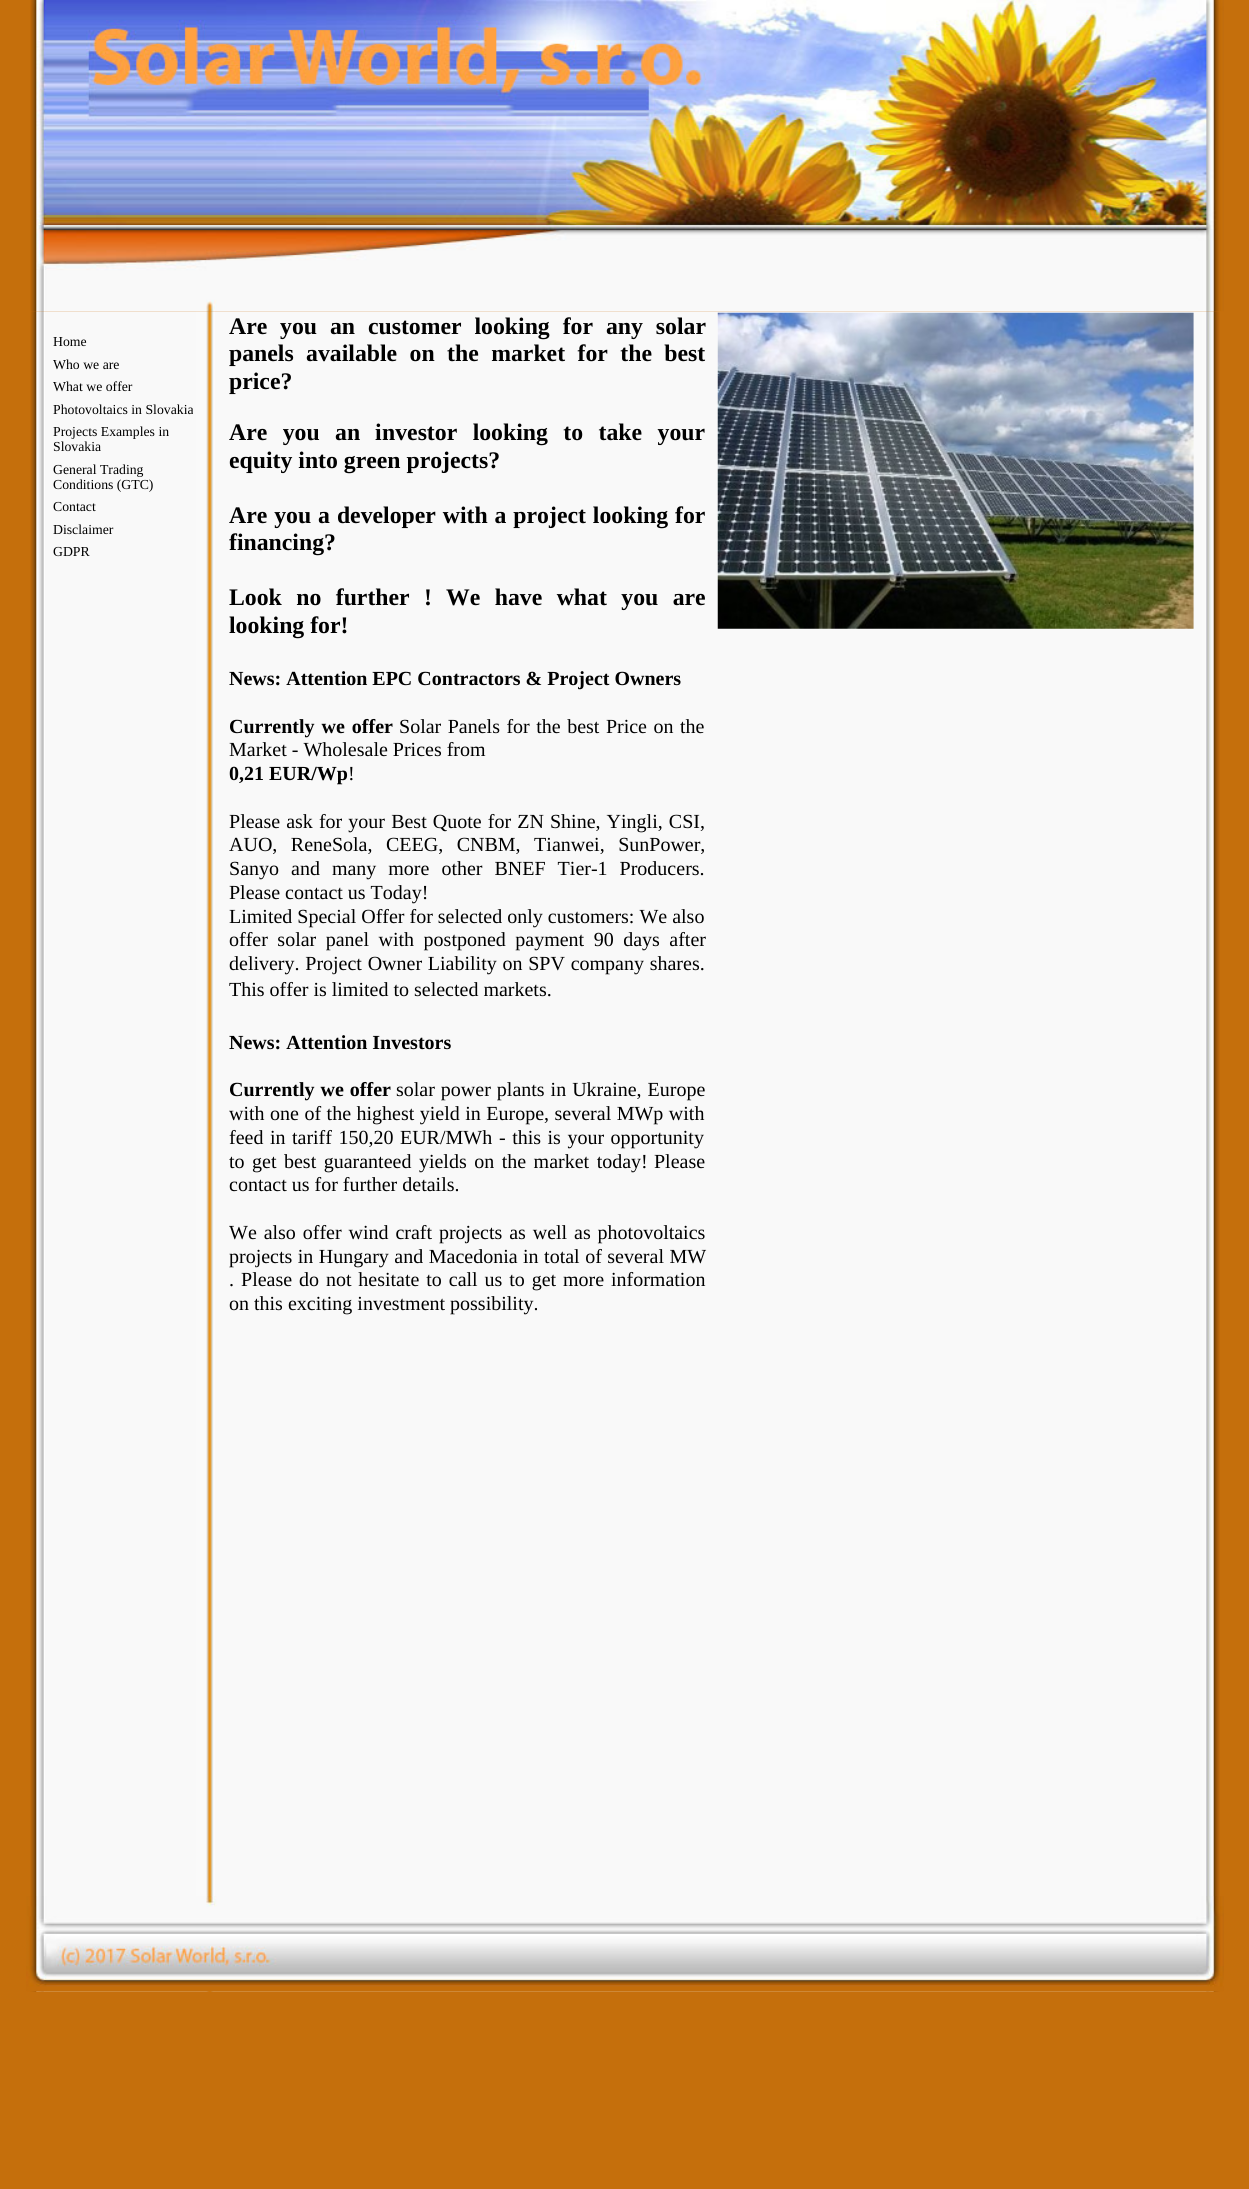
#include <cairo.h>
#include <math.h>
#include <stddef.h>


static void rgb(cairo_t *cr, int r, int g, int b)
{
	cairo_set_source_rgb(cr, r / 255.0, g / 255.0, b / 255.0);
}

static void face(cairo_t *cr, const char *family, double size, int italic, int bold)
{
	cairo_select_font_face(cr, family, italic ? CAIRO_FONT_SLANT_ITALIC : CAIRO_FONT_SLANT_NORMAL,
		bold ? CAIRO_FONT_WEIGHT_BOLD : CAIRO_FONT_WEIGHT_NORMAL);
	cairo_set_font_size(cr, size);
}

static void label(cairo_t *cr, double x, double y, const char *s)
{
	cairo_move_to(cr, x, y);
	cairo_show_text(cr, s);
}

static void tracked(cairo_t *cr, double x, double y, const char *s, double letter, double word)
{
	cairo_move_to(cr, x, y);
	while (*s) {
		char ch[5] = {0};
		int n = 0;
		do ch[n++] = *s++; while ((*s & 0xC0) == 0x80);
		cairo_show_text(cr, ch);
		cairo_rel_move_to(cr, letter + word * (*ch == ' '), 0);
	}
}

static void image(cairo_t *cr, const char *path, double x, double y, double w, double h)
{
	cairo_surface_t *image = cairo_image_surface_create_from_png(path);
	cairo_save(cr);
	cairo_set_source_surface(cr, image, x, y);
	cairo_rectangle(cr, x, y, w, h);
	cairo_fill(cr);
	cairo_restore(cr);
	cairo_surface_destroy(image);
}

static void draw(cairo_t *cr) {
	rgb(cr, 197, 111, 12);
	cairo_paint(cr);
	image(cr, "image1.png", 30, 311, 1190, 1681);
	image(cr, "image0.png", 30, 0, 1194, 312);
	face(cr, "Liberation Serif", 13.75, 0, 0);
	rgb(cr, 0, 0, 0);
	label(cr, 53, 346, "Home");
	label(cr, 53, 369, "Who we are");
	label(cr, 53, 391, "What we offer");
	label(cr, 53, 414, "Photovoltaics in Slovakia");
	label(cr, 53, 436, "Projects Examples in");
	label(cr, 53, 451, "Slovakia");
	label(cr, 53, 474, "General Trading");
	label(cr, 53, 489, "Conditions (GTC)");
	label(cr, 53, 511, "Contact");
	label(cr, 53, 534, "Disclaimer");
	label(cr, 53, 556, "GDPR");
	face(cr, "Liberation Serif", 23.75, 0, 1);
	label(cr, 229, 334, "Are");
	tracked(cr, 280, 334, "you an customer looking for any solar", 0, 7);
	tracked(cr, 229, 361, "panels available on the market for the best", 0, 6.5);
	label(cr, 229, 389, "price?");
	tracked(cr, 229, 440, "Are you an", 0, 9.5);
	label(cr, 375, 440, "i");
	tracked(cr, 382, 440, "nvestor looking to take your", 0, 9.5);
	label(cr, 229, 468, "equity into green projects?");
	tracked(cr, 229, 523, "Are you a developer with a project looking for", 0, 1);
	label(cr, 229, 550, "financing?");
	tracked(cr, 229, 605, "Look no further !", 0, 8.5);
	tracked(cr, 446, 605, "We have what you are", 0, 8.5);
	label(cr, 229, 633, "looking for!");
	face(cr, "Liberation Serif", 20, 0, 1);
	label(cr, 229, 685, "News: Attention EPC Contractors & Project Owners");
	tracked(cr, 229, 733, "Currently we offer", 0, 2);
	face(cr, "Liberation Serif", 20, 0, 0);
	tracked(cr, 399, 733, "Solar Panels for the best Price on the", 0, 1.5);
	label(cr, 229, 756, "Market - Wholesale Prices from");
	face(cr, "Liberation Serif", 20, 0, 1);
	label(cr, 229, 780, "0,21 EUR/Wp");
	face(cr, "Liberation Serif", 20, 0, 0);
	label(cr, 348, 780, "!");
	tracked(cr, 229, 828, "Please ask for your Best Quote for ZN Shine, Yingli, CSI,", 0, 1.1);
	tracked(cr, 229, 851, "AUO, ReneSola, CEEG, CNBM, Tianwei, SunPower,", 0, 8.5);
	tracked(cr, 229, 875, "Sanyo and many more other BNEF Tier-1 Producers.", 0, 7);
	label(cr, 229, 899, "Please contact us Today!");
	label(cr, 229, 923, "Limited Special Offer for selected only customers: We also");
	tracked(cr, 229, 946, "offer solar panel with postponed payment 90 days after", 0, 4.5);
	tracked(cr, 229, 970, "delivery. Project Owner Liability on SPV company shares.", 0, 0.75);
	label(cr, 229, 996, "This offer is limited to selected markets.");
	face(cr, "Liberation Serif", 20, 0, 1);
	label(cr, 229, 1049, "News: Attention Investors");
	tracked(cr, 229, 1096, "Currently we offer", 0, 1);
	face(cr, "Liberation Serif", 20, 0, 0);
	tracked(cr, 396, 1096, "solar power plants in Ukraine, Europe", 0, 1);
	tracked(cr, 229, 1120, "with one of the highest yield in Europe, several MWp with", 0, 0.5);
	tracked(cr, 229, 1144, "feed in tariff 150,20 EUR/MWh", 0, 1.5);
	tracked(cr, 499, 1144, "- this is your opportunity", 0, 1.5);
	tracked(cr, 229, 1168, "to get best guaranteed yields on the market today!", 0, 2.5);
	label(cr, 654, 1168, "Please");
	label(cr, 229, 1191, "contact us for further details.");
	tracked(cr, 229, 1239, "We also offer wind craft projects as well as photovoltaics", 0, 1.9);
	tracked(cr, 229, 1263, "projects in Hungary and Macedonia in total of several MW", 0, 0.5);
	label(cr, 229, 1286, ".");
	tracked(cr, 241, 1286, "Please do not hesitate to call us to get more information", 0, 1.9);
	label(cr, 229, 1310, "on this exciting investment possibility.");
	image(cr, "image2.png", 717, 312, 477, 317);
	image(cr, "image3.png", 26, 1896, 1198, 96);
}

int main(void) {
	cairo_surface_t *surface = cairo_image_surface_create(CAIRO_FORMAT_RGB24, 1249, 2189);
	cairo_t *cr = cairo_create(surface);
	cairo_font_options_t *options = cairo_font_options_create();
	cairo_font_options_set_hint_metrics(options, CAIRO_HINT_METRICS_OFF);
	cairo_font_options_set_hint_style(options, CAIRO_HINT_STYLE_NONE);
	cairo_set_font_options(cr, options);
	cairo_set_miter_limit(cr, 4);
	draw(cr);
	cairo_surface_write_to_png(surface, "render.png");
	cairo_font_options_destroy(options);
	cairo_destroy(cr);
	cairo_surface_destroy(surface);
	return 0;
}
